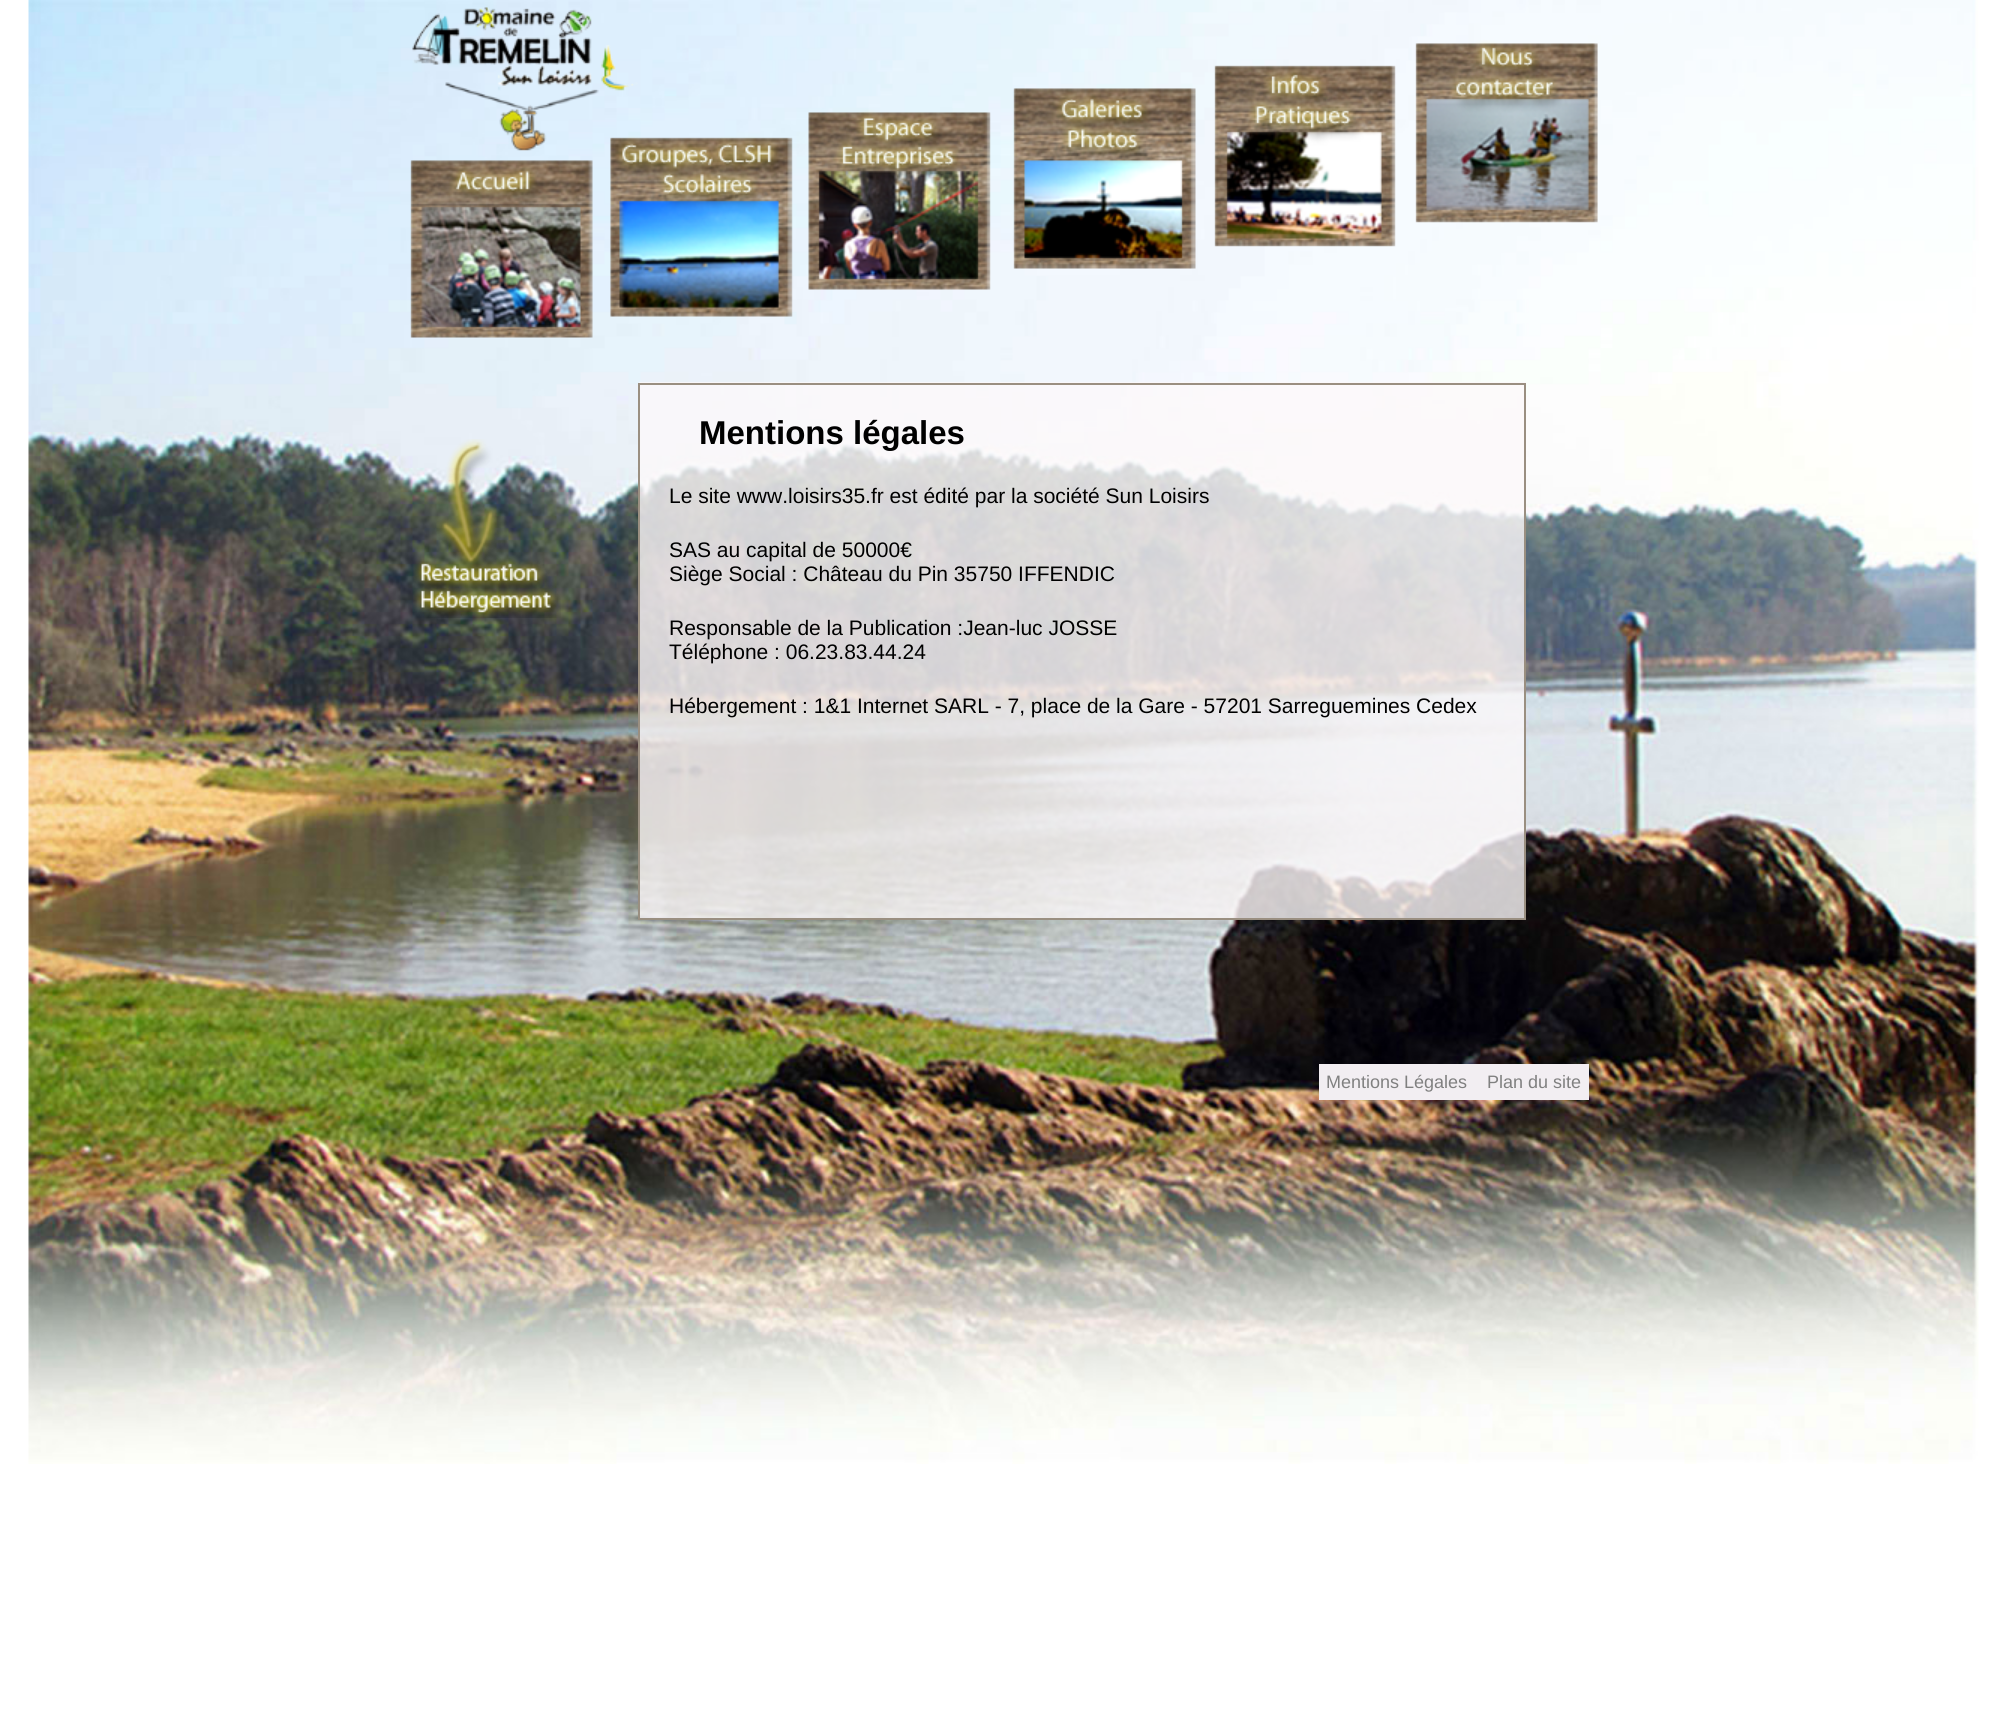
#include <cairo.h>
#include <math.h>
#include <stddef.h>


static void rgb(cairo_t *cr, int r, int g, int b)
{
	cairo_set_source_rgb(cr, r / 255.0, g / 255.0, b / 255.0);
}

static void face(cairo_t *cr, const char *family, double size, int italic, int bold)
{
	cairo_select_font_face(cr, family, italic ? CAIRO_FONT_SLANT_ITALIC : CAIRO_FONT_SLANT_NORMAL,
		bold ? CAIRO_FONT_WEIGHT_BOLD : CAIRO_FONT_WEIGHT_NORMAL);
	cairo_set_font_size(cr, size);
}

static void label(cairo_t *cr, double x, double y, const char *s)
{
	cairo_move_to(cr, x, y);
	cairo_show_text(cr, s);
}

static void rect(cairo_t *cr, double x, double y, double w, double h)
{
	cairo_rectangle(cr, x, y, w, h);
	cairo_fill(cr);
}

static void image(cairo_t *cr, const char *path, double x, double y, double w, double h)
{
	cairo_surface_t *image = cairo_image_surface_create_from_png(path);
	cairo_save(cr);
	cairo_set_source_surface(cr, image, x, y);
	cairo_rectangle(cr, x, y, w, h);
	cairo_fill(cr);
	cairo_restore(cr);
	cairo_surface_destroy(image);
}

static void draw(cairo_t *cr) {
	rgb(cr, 255, 255, 255);
	cairo_paint(cr);
	image(cr, "image0.png", 28, 0, 1951, 1464);
	image(cr, "image1.png", 410, 7, 1188, 331);
	image(cr, "image2.png", 413, 439, 148, 179);
	cairo_set_source_rgba(cr, 0.988, 0.973, 0.98, 0.8);
	rect(cr, 639, 382, 887, 536);
	cairo_rectangle(cr, 639, 384, 886, 535);
	rgb(cr, 154, 143, 129);
	cairo_stroke(cr);
	face(cr, "Liberation Sans", 33, 0, 1);
	rgb(cr, 0, 0, 0);
	label(cr, 699, 444, "Mentions légales");
	face(cr, "Liberation Sans", 21, 0, 0);
	label(cr, 669, 503, "Le site www.loisirs35.fr est édité par la société Sun Loisirs");
	label(cr, 669, 557, "SAS au capital de 50000€");
	label(cr, 669, 581, "Siège Social : Château du Pin 35750 IFFENDIC");
	label(cr, 669, 635, "Responsable de la Publication :Jean-luc JOSSE");
	label(cr, 669, 659, "Téléphone : 06.23.83.44.24");
	label(cr, 669, 713, "Hébergement : 1&1 Internet SARL - 7, place de la Gare - 57201 Sarreguemines Cedex");
	rgb(cr, 242, 238, 242);
	rect(cr, 1319, 1064, 270, 36);
	face(cr, "Liberation Sans", 18, 0, 0);
	rgb(cr, 128, 128, 128);
	label(cr, 1326, 1088, "Mentions Légales");
	label(cr, 1487, 1088, "Plan du site");
}

int main(void) {
	cairo_surface_t *surface = cairo_image_surface_create(CAIRO_FORMAT_RGB24, 2006, 1723);
	cairo_t *cr = cairo_create(surface);
	cairo_font_options_t *options = cairo_font_options_create();
	cairo_font_options_set_hint_metrics(options, CAIRO_HINT_METRICS_OFF);
	cairo_font_options_set_hint_style(options, CAIRO_HINT_STYLE_NONE);
	cairo_set_font_options(cr, options);
	cairo_set_miter_limit(cr, 4);
	draw(cr);
	cairo_surface_write_to_png(surface, "render.png");
	cairo_font_options_destroy(options);
	cairo_destroy(cr);
	cairo_surface_destroy(surface);
	return 0;
}
